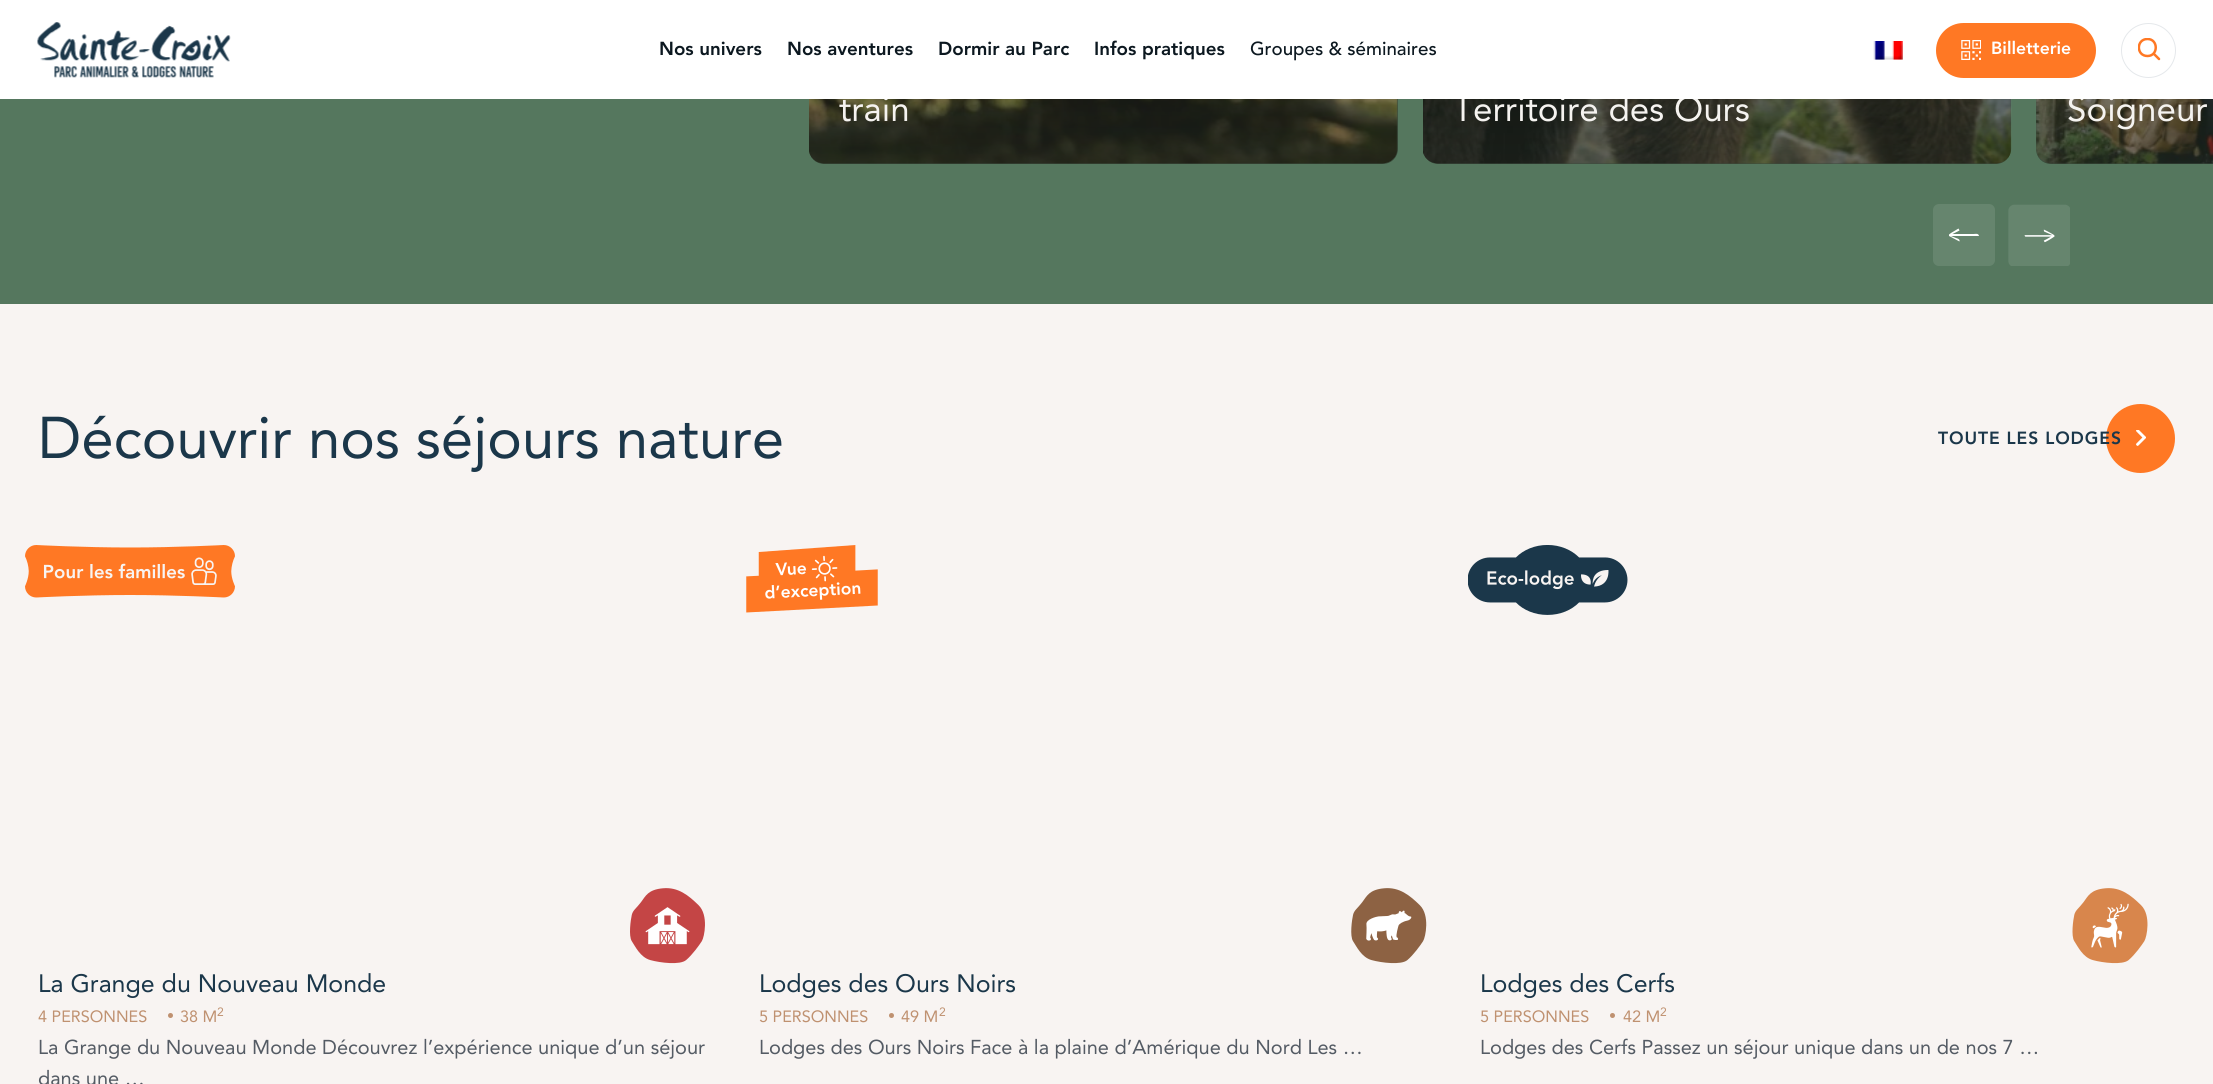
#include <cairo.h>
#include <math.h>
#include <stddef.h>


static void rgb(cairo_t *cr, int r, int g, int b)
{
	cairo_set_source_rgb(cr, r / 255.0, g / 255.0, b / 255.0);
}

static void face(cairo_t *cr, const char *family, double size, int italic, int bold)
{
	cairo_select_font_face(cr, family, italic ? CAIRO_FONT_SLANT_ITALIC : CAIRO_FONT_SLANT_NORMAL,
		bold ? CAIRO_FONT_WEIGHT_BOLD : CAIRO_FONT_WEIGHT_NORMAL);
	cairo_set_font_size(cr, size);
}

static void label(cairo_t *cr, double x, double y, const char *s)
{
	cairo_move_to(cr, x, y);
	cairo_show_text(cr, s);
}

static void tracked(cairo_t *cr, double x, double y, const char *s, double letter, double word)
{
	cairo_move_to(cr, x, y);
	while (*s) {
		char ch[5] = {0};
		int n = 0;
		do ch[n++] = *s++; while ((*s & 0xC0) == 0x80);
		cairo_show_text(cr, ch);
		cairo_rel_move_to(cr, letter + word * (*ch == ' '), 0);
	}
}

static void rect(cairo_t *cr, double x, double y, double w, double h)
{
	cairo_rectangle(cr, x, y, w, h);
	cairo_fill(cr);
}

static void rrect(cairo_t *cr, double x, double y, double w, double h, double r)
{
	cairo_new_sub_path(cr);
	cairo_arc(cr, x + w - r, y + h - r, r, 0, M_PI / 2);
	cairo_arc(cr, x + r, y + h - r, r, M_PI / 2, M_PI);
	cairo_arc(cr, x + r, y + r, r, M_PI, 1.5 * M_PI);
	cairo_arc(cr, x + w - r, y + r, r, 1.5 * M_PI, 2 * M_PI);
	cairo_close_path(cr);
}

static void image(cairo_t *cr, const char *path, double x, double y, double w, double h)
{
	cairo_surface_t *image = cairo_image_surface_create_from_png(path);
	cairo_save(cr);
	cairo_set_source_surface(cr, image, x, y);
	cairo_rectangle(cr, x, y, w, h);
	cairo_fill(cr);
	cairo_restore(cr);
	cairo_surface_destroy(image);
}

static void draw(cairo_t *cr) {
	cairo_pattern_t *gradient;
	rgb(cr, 248, 244, 242);
	cairo_paint(cr);
	rgb(cr, 85, 119, 94);
	rect(cr, 0, 99, 2213, 205);
	image(cr, "image3.png", 809, 99, 589, 65);
	gradient = cairo_pattern_create_linear(1103, -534, 1103, 164);
	cairo_pattern_add_color_stop_rgba(gradient, 0, 0.157, 0.188, 0.153, 0);
	cairo_pattern_add_color_stop_rgba(gradient, 0.34, 0.157, 0.188, 0.153, 0);
	cairo_pattern_add_color_stop_rgba(gradient, 1, 0.157, 0.188, 0.153, 0.6);
	cairo_set_source(cr, gradient);
	cairo_pattern_destroy(gradient);
	rrect(cr, 809, -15, 589, 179, 15);
	cairo_fill(cr);
	face(cr, "Avenir", 35, 0, 0);
	rgb(cr, 245, 243, 240);
	label(cr, 839, 121, "train");
	image(cr, "image4.png", 1423, 99, 589, 65);
	gradient = cairo_pattern_create_linear(1717, -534, 1717, 164);
	cairo_pattern_add_color_stop_rgba(gradient, 0, 0.157, 0.188, 0.153, 0);
	cairo_pattern_add_color_stop_rgba(gradient, 0.34, 0.157, 0.188, 0.153, 0);
	cairo_pattern_add_color_stop_rgba(gradient, 1, 0.157, 0.188, 0.153, 0.6);
	cairo_set_source(cr, gradient);
	cairo_pattern_destroy(gradient);
	rrect(cr, 1423, -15, 588, 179, 15);
	cairo_fill(cr);
	rgb(cr, 245, 243, 240);
	label(cr, 1453, 121, "Territoire des Ours");
	image(cr, "image5.png", 2036, 99, 177, 65);
	gradient = cairo_pattern_create_linear(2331, -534, 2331, 164);
	cairo_pattern_add_color_stop_rgba(gradient, 0, 0.157, 0.188, 0.153, 0);
	cairo_pattern_add_color_stop_rgba(gradient, 0.34, 0.157, 0.188, 0.153, 0);
	cairo_pattern_add_color_stop_rgba(gradient, 1, 0.157, 0.188, 0.153, 0.6);
	cairo_set_source(cr, gradient);
	cairo_pattern_destroy(gradient);
	cairo_new_path(cr);
	cairo_move_to(cr, 2051, -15);
	cairo_line_to(cr, 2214, -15);
	cairo_line_to(cr, 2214, 164);
	cairo_line_to(cr, 2051, 164);
	cairo_curve_to(cr, 2042.5, 164, 2036, 157.5, 2036, 149);
	cairo_line_to(cr, 2036, 0);
	cairo_curve_to(cr, 2036, -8.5, 2042.5, -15, 2051, -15);
	cairo_close_path(cr);
	cairo_fill(cr);
	rgb(cr, 245, 243, 240);
	label(cr, 2067, 121, "Soigneur");
	rgb(cr, 255, 255, 255);
	rect(cr, 0, 0, 2213, 99);
	image(cr, "image0.png", 37, 22, 194, 56);
	face(cr, "Avenir Black", 18.75, 0, 0);
	rgb(cr, 12, 24, 32);
	label(cr, 659, 55, "Nos univers");
	label(cr, 787, 55, "Nos aventures");
	label(cr, 938, 55, "Dormir au Parc");
	label(cr, 1094, 55, "Infos pratiques");
	face(cr, "Avenir Medium", 18.75, 0, 0);
	label(cr, 1250, 55, "Groupes & séminaires");
	image(cr, "image1.png", 1873, 41, 30, 19);
	rgb(cr, 255, 120, 36);
	rrect(cr, 1936, 23, 160, 55, 27.5);
	cairo_fill(cr);
	image(cr, "image2.png", 1961, 40, 20, 20);
	face(cr, "Avenir Black", 17.5, 0, 0);
	rgb(cr, 255, 255, 255);
	label(cr, 1991, 54, "Billetterie");
	cairo_new_path(cr);
	cairo_arc(cr, 2148.5, 50.5, 27, 0, 2 * M_PI);
	rgb(cr, 229, 232, 235);
	cairo_set_line_width(cr, 1);
	cairo_stroke(cr);
	cairo_save(cr);
	cairo_rectangle(cr, 2138, 38, 22, 23);
	cairo_clip(cr);
	cairo_new_path(cr);
	cairo_move_to(cr, 2147.5, 39);
	cairo_curve_to(cr, 2136, 39, 2136, 56, 2147.5, 56);
	cairo_curve_to(cr, 2158.5, 56, 2158.5, 39, 2147.5, 39);
	cairo_close_path(cr);
	rgb(cr, 255, 120, 36);
	cairo_set_line_width(cr, 2.5);
	cairo_stroke(cr);
	cairo_restore(cr);
	cairo_new_path(cr);
	cairo_move_to(cr, 2154, 54);
	cairo_line_to(cr, 2159, 59);
	rgb(cr, 255, 120, 36);
	cairo_set_line_width(cr, 2.5);
	cairo_set_line_cap(cr, CAIRO_LINE_CAP_ROUND);
	cairo_stroke(cr);
	rgb(cr, 102, 133, 110);
	rrect(cr, 1933, 204, 62, 62, 6);
	cairo_fill(cr);
	rgb(cr, 255, 255, 255);
	cairo_new_path(cr);
	cairo_move_to(cr, 1951, 233);
	cairo_line_to(cr, 1958.5, 228.5);
	cairo_line_to(cr, 1959.5, 230.5);
	cairo_line_to(cr, 1952.5, 234);
	cairo_line_to(cr, 1973.5, 234);
	cairo_curve_to(cr, 1975.5, 234, 1978.5, 233, 1979, 236);
	cairo_line_to(cr, 1951, 236);
	cairo_line_to(cr, 1956, 238);
	cairo_curve_to(cr, 1957.5, 238.5, 1960, 239, 1959.5, 241.5);
	cairo_line_to(cr, 1949, 236);
	cairo_line_to(cr, 1949, 234.5);
	cairo_line_to(cr, 1951, 233);
	cairo_fill(cr);
	image(cr, "image6.png", 2008, 204, 62, 62);
	face(cr, "Avenir", 58.3, 0, 0);
	rgb(cr, 27, 55, 74);
	label(cr, 38, 458, "Découvrir nos séjours nature");
	rgb(cr, 255, 120, 36);
	cairo_new_path(cr);
	cairo_arc(cr, 2140.5, 438.5, 34.5, 0, 2 * M_PI);
	cairo_fill(cr);
	face(cr, "Avenir Black", 17.5, 0, 0);
	rgb(cr, 27, 55, 74);
	tracked(cr, 1938, 444, "TOUTE LES LODGES", 0.9, 0);
	image(cr, "image7.png", 2136, 430, 10, 16);
	image(cr, "image8.png", 25, 545, 210, 53);
	image(cr, "image9.png", 630, 888, 75, 76);
	image(cr, "image10.png", 630, 888, 75, 75);
	face(cr, "Avenir", 25, 0, 0);
	label(cr, 38, 992, "La Grange du Nouveau Monde");
	face(cr, "Avenir", 16.25, 0, 0);
	rgb(cr, 191, 145, 112);
	label(cr, 38, 1022, "4 PERSONNES");
	cairo_new_path(cr);
	cairo_arc(cr, 170.5, 1015.5, 2.5, 0, 2 * M_PI);
	cairo_fill(cr);
	label(cr, 180, 1022, "38 M");
	face(cr, "Avenir", 12, 0, 0);
	label(cr, 217, 1016, "2");
	face(cr, "Avenir", 20, 0, 0);
	rgb(cr, 84, 91, 100);
	label(cr, 38, 1054, "La Grange du Nouveau Monde Découvrez l’expérience unique d’un séjour");
	label(cr, 38, 1085, "dans une …");
	image(cr, "image11.png", 746, 545, 132, 68);
	image(cr, "image12.png", 1351, 888, 76, 76);
	face(cr, "Avenir", 25, 0, 0);
	rgb(cr, 27, 55, 74);
	label(cr, 759, 992, "Lodges des Ours Noirs");
	face(cr, "Avenir", 16.25, 0, 0);
	rgb(cr, 191, 145, 112);
	label(cr, 759, 1022, "5 PERSONNES");
	cairo_new_path(cr);
	cairo_arc(cr, 891.5, 1015.5, 2.5, 0, 2 * M_PI);
	cairo_fill(cr);
	label(cr, 901, 1022, "49 M");
	face(cr, "Avenir", 12, 0, 0);
	label(cr, 939, 1016, "2");
	face(cr, "Avenir", 20, 0, 0);
	rgb(cr, 84, 91, 100);
	label(cr, 759, 1054, "Lodges des Ours Noirs Face à la plaine d’Amérique du Nord Les …");
	image(cr, "image13.png", 1468, 545, 160, 70);
	image(cr, "image14.png", 2072, 888, 76, 76);
	face(cr, "Avenir", 25, 0, 0);
	rgb(cr, 27, 55, 74);
	label(cr, 1480, 992, "Lodges des Cerfs");
	face(cr, "Avenir", 16.25, 0, 0);
	rgb(cr, 191, 145, 112);
	label(cr, 1480, 1022, "5 PERSONNES");
	cairo_new_path(cr);
	cairo_arc(cr, 1612.5, 1015.5, 2.5, 0, 2 * M_PI);
	cairo_fill(cr);
	label(cr, 1623, 1022, "42 M");
	face(cr, "Avenir", 12, 0, 0);
	label(cr, 1660, 1016, "2");
	face(cr, "Avenir", 20, 0, 0);
	rgb(cr, 84, 91, 100);
	label(cr, 1480, 1054, "Lodges des Cerfs Passez un séjour unique dans un de nos 7 …");
}

int main(void) {
	cairo_surface_t *surface = cairo_image_surface_create(CAIRO_FORMAT_RGB24, 2213, 1084);
	cairo_t *cr = cairo_create(surface);
	cairo_font_options_t *options = cairo_font_options_create();
	cairo_font_options_set_hint_metrics(options, CAIRO_HINT_METRICS_OFF);
	cairo_font_options_set_hint_style(options, CAIRO_HINT_STYLE_NONE);
	cairo_set_font_options(cr, options);
	cairo_set_miter_limit(cr, 4);
	draw(cr);
	cairo_surface_write_to_png(surface, "render.png");
	cairo_font_options_destroy(options);
	cairo_destroy(cr);
	cairo_surface_destroy(surface);
	return 0;
}
